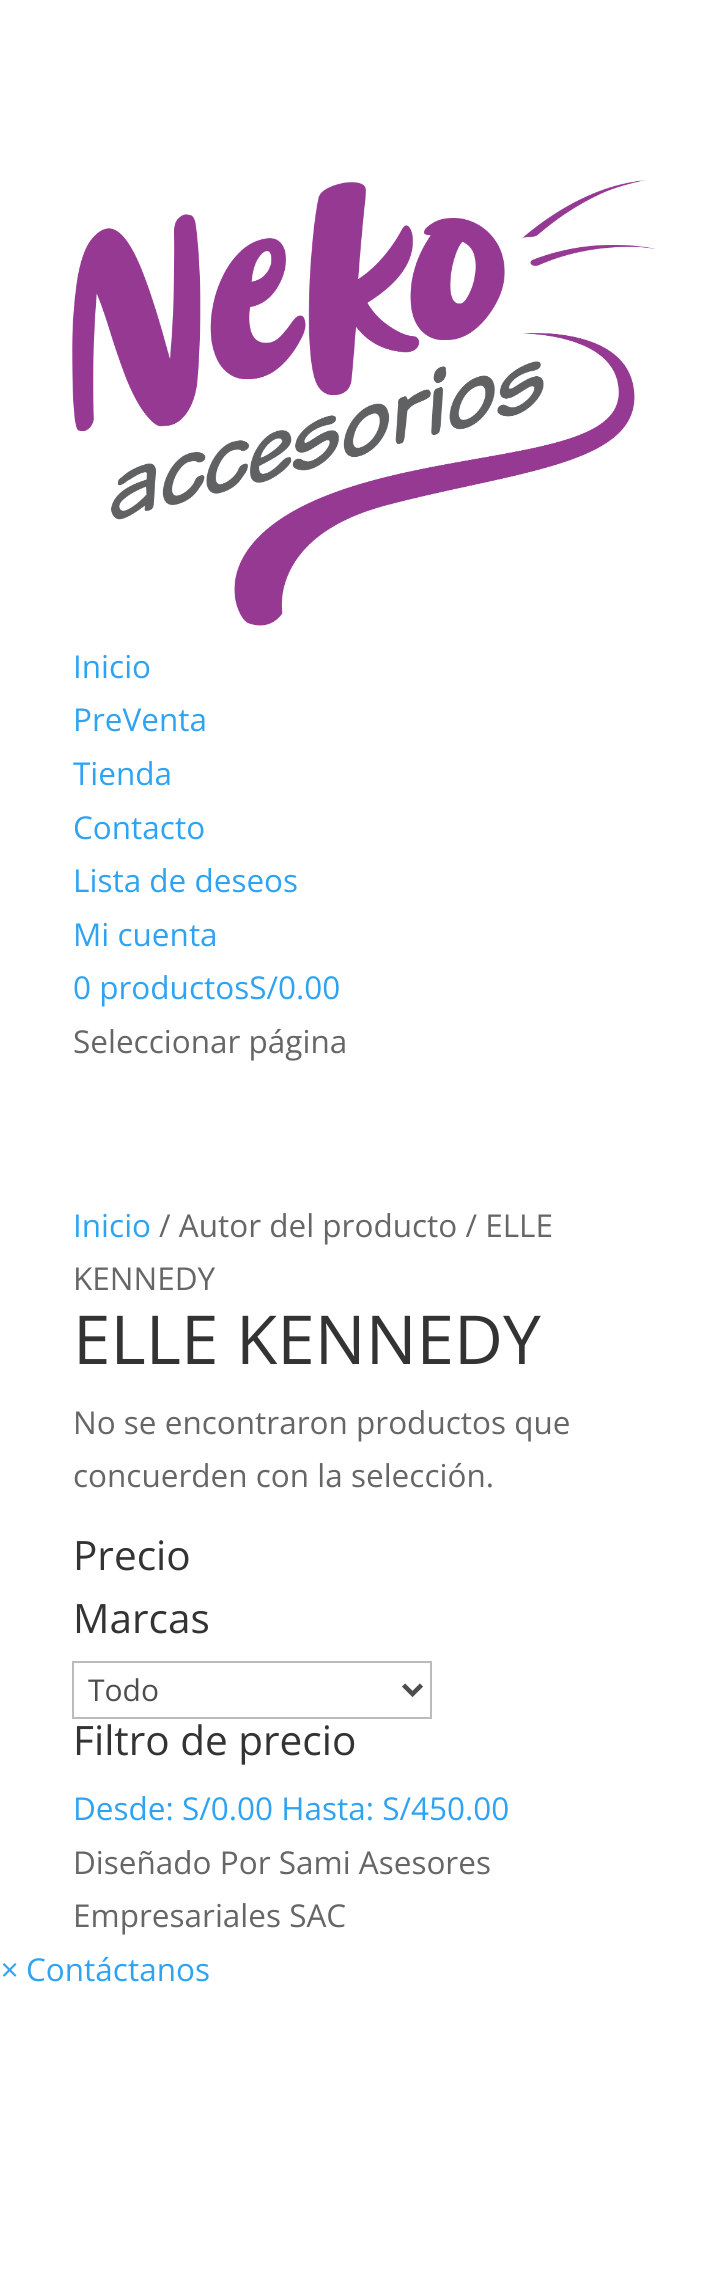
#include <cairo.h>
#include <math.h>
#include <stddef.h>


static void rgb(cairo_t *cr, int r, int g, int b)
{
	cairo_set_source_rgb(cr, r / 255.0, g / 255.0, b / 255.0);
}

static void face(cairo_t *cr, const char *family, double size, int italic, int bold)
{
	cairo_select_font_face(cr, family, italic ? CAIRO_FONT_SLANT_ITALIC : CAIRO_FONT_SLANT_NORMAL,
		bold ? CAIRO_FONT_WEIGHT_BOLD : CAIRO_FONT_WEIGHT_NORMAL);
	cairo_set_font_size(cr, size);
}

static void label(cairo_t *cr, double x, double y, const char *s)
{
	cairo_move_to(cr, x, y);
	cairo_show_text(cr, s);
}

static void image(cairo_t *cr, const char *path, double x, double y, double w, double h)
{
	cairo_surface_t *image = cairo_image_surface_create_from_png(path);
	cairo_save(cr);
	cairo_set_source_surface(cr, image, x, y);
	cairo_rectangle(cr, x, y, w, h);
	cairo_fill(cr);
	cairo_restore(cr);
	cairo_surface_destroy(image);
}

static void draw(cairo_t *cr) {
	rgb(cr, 255, 255, 255);
	cairo_paint(cr);
	image(cr, "image0.png", 72, 180, 583, 446);
	face(cr, "Open Sans", 31.5, 0, 0);
	rgb(cr, 46, 163, 242);
	label(cr, 73, 678, "Inicio");
	label(cr, 73, 731, "PreVenta");
	label(cr, 73, 785, "Tienda");
	label(cr, 73, 839, "Contacto");
	label(cr, 73, 892, "Lista de deseos");
	label(cr, 73, 946, "Mi cuenta");
	label(cr, 73, 999, "0 productosS/0.00");
	rgb(cr, 102, 102, 102);
	label(cr, 73, 1053, "Seleccionar página");
	rgb(cr, 46, 163, 242);
	label(cr, 73, 1237, "Inicio");
	rgb(cr, 102, 102, 102);
	label(cr, 159, 1237, "/ Autor del producto / ELLE");
	label(cr, 73, 1290, "KENNEDY");
	face(cr, "Open Sans", 67.5, 0, 0);
	rgb(cr, 51, 51, 51);
	label(cr, 73, 1364, "ELLE KENNEDY");
	face(cr, "Open Sans", 31.5, 0, 0);
	rgb(cr, 102, 102, 102);
	label(cr, 73, 1434, "No se encontraron productos que");
	label(cr, 73, 1487, "concuerden con la selección.");
	face(cr, "Open Sans", 40.5, 0, 0);
	rgb(cr, 51, 51, 51);
	label(cr, 73, 1570, "Precio");
	label(cr, 73, 1633, "Marcas");
	cairo_rectangle(cr, 73, 1662, 358, 56);
	rgb(cr, 187, 187, 187);
	cairo_stroke(cr);
	cairo_new_path(cr);
	cairo_move_to(cr, 403.5, 1685);
	cairo_line_to(cr, 412.5, 1694);
	cairo_line_to(cr, 421.5, 1685);
	rgb(cr, 78, 78, 78);
	cairo_set_line_width(cr, 4.5);
	cairo_stroke(cr);
	face(cr, "Open Sans", 30, 0, 0);
	label(cr, 88, 1701, "Todo");
	face(cr, "Open Sans", 40.5, 0, 0);
	rgb(cr, 51, 51, 51);
	label(cr, 73, 1755, "Filtro de precio");
	face(cr, "Open Sans", 31.5, 0, 0);
	rgb(cr, 46, 163, 242);
	label(cr, 73, 1820, "Desde: S/0.00 Hasta: S/450.00");
	rgb(cr, 102, 102, 102);
	label(cr, 73, 1874, "Diseñado Por Sami Asesores");
	label(cr, 73, 1927, "Empresariales SAC");
	face(cr, "Open Sans", 31.5, 1, 0);
	rgb(cr, 46, 163, 242);
	label(cr, 0, 1981, "×");
	face(cr, "Open Sans", 31.5, 0, 0);
	label(cr, 26, 1981, "Contáctanos");
}

int main(void) {
	cairo_surface_t *surface = cairo_image_surface_create(CAIRO_FORMAT_RGB24, 725, 2289);
	cairo_t *cr = cairo_create(surface);
	cairo_font_options_t *options = cairo_font_options_create();
	cairo_font_options_set_hint_metrics(options, CAIRO_HINT_METRICS_OFF);
	cairo_font_options_set_hint_style(options, CAIRO_HINT_STYLE_NONE);
	cairo_set_font_options(cr, options);
	cairo_set_miter_limit(cr, 4);
	draw(cr);
	cairo_surface_write_to_png(surface, "render.png");
	cairo_font_options_destroy(options);
	cairo_destroy(cr);
	cairo_surface_destroy(surface);
	return 0;
}
